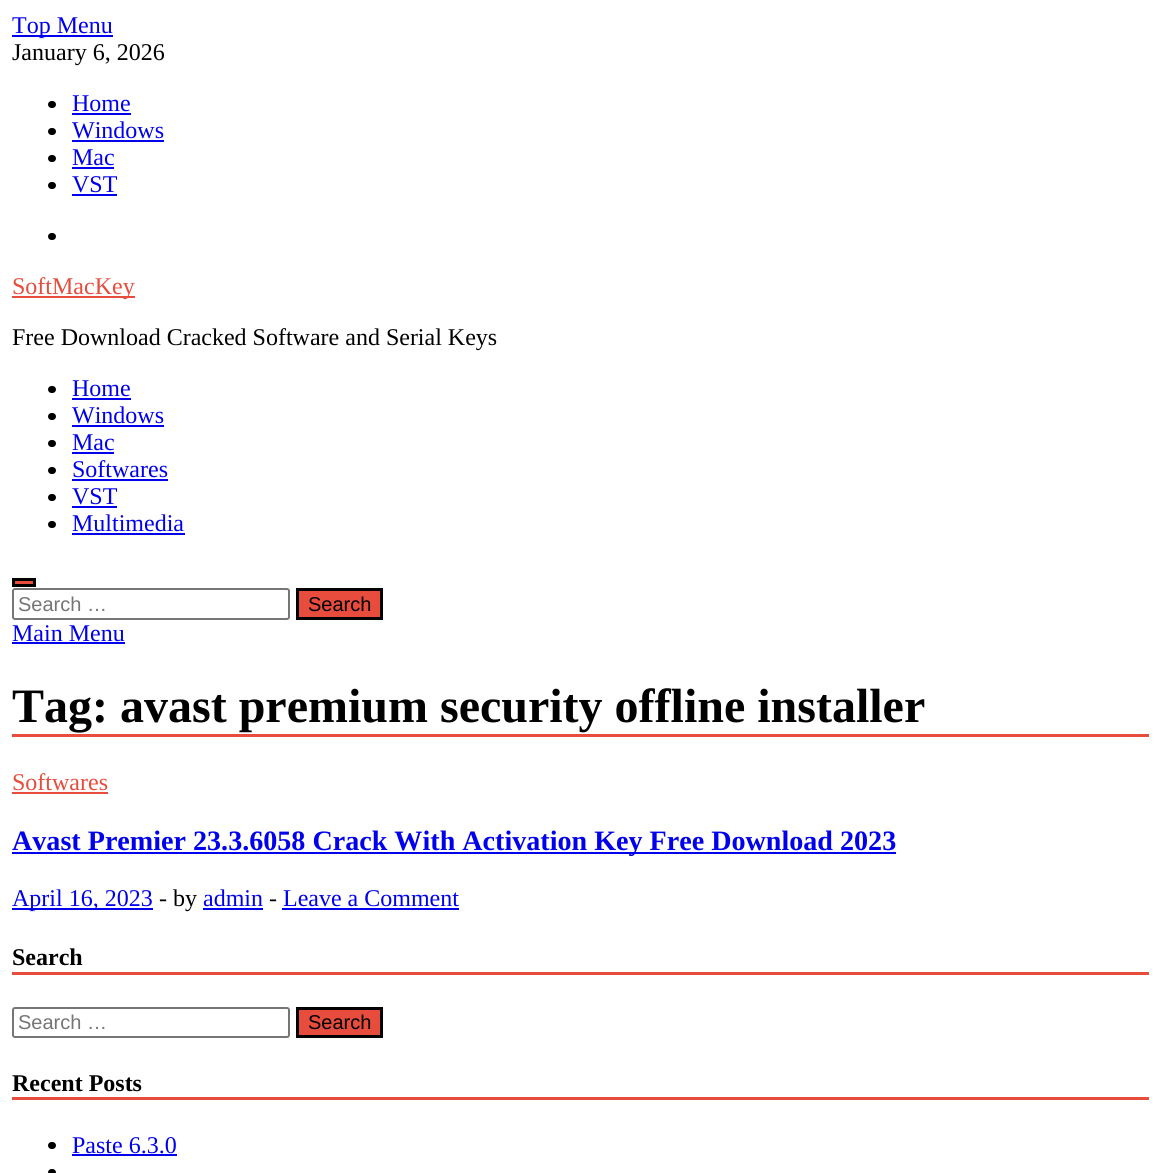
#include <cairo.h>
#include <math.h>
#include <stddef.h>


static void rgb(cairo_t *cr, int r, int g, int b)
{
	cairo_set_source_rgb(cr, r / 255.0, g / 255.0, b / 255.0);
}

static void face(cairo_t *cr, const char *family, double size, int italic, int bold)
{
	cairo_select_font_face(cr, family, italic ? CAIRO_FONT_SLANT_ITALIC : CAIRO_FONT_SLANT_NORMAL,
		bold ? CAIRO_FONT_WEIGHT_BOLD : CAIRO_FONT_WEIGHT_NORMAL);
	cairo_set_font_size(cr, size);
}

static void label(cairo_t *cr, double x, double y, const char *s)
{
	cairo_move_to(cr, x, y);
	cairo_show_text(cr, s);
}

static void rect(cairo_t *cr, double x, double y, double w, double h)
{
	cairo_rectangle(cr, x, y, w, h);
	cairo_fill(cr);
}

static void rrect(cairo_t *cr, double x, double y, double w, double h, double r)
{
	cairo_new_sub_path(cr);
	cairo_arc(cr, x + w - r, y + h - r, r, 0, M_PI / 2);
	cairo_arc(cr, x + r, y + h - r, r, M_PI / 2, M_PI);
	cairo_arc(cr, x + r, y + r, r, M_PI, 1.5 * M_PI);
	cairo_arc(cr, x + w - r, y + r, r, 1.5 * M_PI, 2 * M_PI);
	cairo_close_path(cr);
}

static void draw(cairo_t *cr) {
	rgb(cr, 255, 255, 255);
	cairo_paint(cr);
	rgb(cr, 0, 0, 238);
	rect(cr, 12, 35, 101, 2);
	face(cr, "Liberation Serif", 24, 0, 0);
	label(cr, 12, 33, "Top Menu");
	rgb(cr, 0, 0, 0);
	label(cr, 12, 60, "January 6, 2026");
	rrect(cr, 48, 101, 8, 7, 3.5);
	cairo_fill(cr);
	rgb(cr, 0, 0, 238);
	label(cr, 72, 111, "Home");
	rect(cr, 72, 113, 59, 2);
	rgb(cr, 0, 0, 0);
	rrect(cr, 48, 128, 8, 7, 3.5);
	cairo_fill(cr);
	rgb(cr, 0, 0, 238);
	label(cr, 72, 138, "Windows");
	rect(cr, 72, 140, 92, 2);
	rgb(cr, 0, 0, 0);
	rrect(cr, 48, 155, 8, 7, 3.5);
	cairo_fill(cr);
	rgb(cr, 0, 0, 238);
	label(cr, 72, 165, "Mac");
	rect(cr, 72, 167, 42, 2);
	rgb(cr, 0, 0, 0);
	rrect(cr, 48, 182, 8, 7, 3.5);
	cairo_fill(cr);
	rgb(cr, 0, 0, 238);
	label(cr, 72, 192, "VST");
	rect(cr, 72, 194, 45, 2);
	rgb(cr, 0, 0, 0);
	rrect(cr, 48, 233, 8, 7, 3.5);
	cairo_fill(cr);
	rgb(cr, 231, 76, 60);
	rect(cr, 12, 296, 123, 2);
	label(cr, 12, 294, "SoftMacKey");
	rgb(cr, 0, 0, 0);
	label(cr, 12, 345, "Free Download Cracked Software and Serial Keys");
	rrect(cr, 48, 386, 8, 7, 3.5);
	cairo_fill(cr);
	rgb(cr, 0, 0, 238);
	label(cr, 72, 396, "Home");
	rect(cr, 72, 398, 59, 2);
	rgb(cr, 0, 0, 0);
	rrect(cr, 48, 413, 8, 7, 3.5);
	cairo_fill(cr);
	rgb(cr, 0, 0, 238);
	label(cr, 72, 423, "Windows");
	rect(cr, 72, 425, 92, 2);
	rgb(cr, 0, 0, 0);
	rrect(cr, 48, 440, 8, 7, 3.5);
	cairo_fill(cr);
	rgb(cr, 0, 0, 238);
	label(cr, 72, 450, "Mac");
	rect(cr, 72, 452, 42, 2);
	rgb(cr, 0, 0, 0);
	rrect(cr, 48, 467, 8, 7, 3.5);
	cairo_fill(cr);
	rgb(cr, 0, 0, 238);
	label(cr, 72, 477, "Softwares");
	rect(cr, 72, 479, 96, 2);
	rgb(cr, 0, 0, 0);
	rrect(cr, 48, 494, 8, 7, 3.5);
	cairo_fill(cr);
	rgb(cr, 0, 0, 238);
	label(cr, 72, 504, "VST");
	rect(cr, 72, 506, 45, 2);
	rgb(cr, 0, 0, 0);
	rrect(cr, 48, 521, 8, 7, 3.5);
	cairo_fill(cr);
	rgb(cr, 0, 0, 238);
	label(cr, 72, 531, "Multimedia");
	rect(cr, 72, 533, 113, 2);
	rgb(cr, 231, 76, 60);
	cairo_rectangle(cr, 13.5, 579.5, 21, 6);
	cairo_fill_preserve(cr);
	rgb(cr, 0, 0, 0);
	cairo_set_line_width(cr, 3);
	cairo_stroke(cr);
	rrect(cr, 13, 589, 276, 30, 2);
	rgb(cr, 118, 118, 118);
	cairo_set_line_width(cr, 2);
	cairo_stroke(cr);
	face(cr, "Liberation Sans", 20, 0, 0);
	rgb(cr, 117, 117, 117);
	label(cr, 18, 611, "Search …");
	rgb(cr, 231, 76, 60);
	cairo_rectangle(cr, 297.5, 589.5, 84, 29);
	cairo_fill_preserve(cr);
	rgb(cr, 0, 0, 0);
	cairo_set_line_width(cr, 3);
	cairo_stroke(cr);
	label(cr, 308, 611, "Search");
	face(cr, "Liberation Serif", 24, 0, 0);
	rgb(cr, 0, 0, 238);
	label(cr, 12, 641, "Main Menu");
	rect(cr, 12, 642, 113, 2);
	rgb(cr, 231, 76, 60);
	rect(cr, 12, 734, 1137, 3);
	face(cr, "Liberation Serif", 48, 0, 1);
	rgb(cr, 0, 0, 0);
	label(cr, 12, 722, "Tag: avast premium security offline installer");
	face(cr, "Liberation Serif", 24, 0, 0);
	rgb(cr, 231, 76, 60);
	label(cr, 12, 790, "Softwares");
	rect(cr, 12, 792, 96, 2);
	rgb(cr, 0, 0, 238);
	rect(cr, 12, 852, 884, 2);
	face(cr, "Liberation Serif", 28.1, 0, 1);
	label(cr, 12, 850, "Avast Premier 23.3.6058 Crack With Activation Key Free Download 2023");
	rect(cr, 12, 908, 141, 2);
	face(cr, "Liberation Serif", 24, 0, 0);
	label(cr, 12, 906, "April 16, 2023");
	rgb(cr, 0, 0, 0);
	label(cr, 159, 906, "- by");
	rgb(cr, 0, 0, 238);
	label(cr, 203, 906, "admin");
	rect(cr, 203, 908, 60, 2);
	rgb(cr, 0, 0, 0);
	label(cr, 269, 906, "-");
	rgb(cr, 0, 0, 238);
	label(cr, 283, 906, "Leave a Comment");
	rect(cr, 282, 908, 177, 2);
	rgb(cr, 231, 76, 60);
	rect(cr, 12, 972, 1137, 3);
	face(cr, "Liberation Serif", 24, 0, 1);
	rgb(cr, 0, 0, 0);
	label(cr, 12, 965, "Search");
	rrect(cr, 13, 1008, 276, 29, 2);
	rgb(cr, 118, 118, 118);
	cairo_set_line_width(cr, 2);
	cairo_stroke(cr);
	face(cr, "Liberation Sans", 20, 0, 0);
	rgb(cr, 117, 117, 117);
	label(cr, 18, 1029, "Search …");
	rgb(cr, 231, 76, 60);
	cairo_rectangle(cr, 297.5, 1008.5, 84, 28);
	cairo_fill_preserve(cr);
	rgb(cr, 0, 0, 0);
	cairo_set_line_width(cr, 3);
	cairo_stroke(cr);
	label(cr, 308, 1029, "Search");
	rgb(cr, 231, 76, 60);
	rect(cr, 12, 1097, 1137, 3);
	face(cr, "Liberation Serif", 24, 0, 1);
	rgb(cr, 0, 0, 0);
	label(cr, 12, 1091, "Recent Posts");
	rrect(cr, 48, 1142, 8, 7, 3.5);
	cairo_fill(cr);
	face(cr, "Liberation Serif", 24, 0, 0);
	rgb(cr, 0, 0, 238);
	label(cr, 72, 1153, "Paste 6.3.0");
	rect(cr, 72, 1154, 105, 2);
	rgb(cr, 0, 0, 0);
	rrect(cr, 48, 1169, 8, 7, 3.5);
	cairo_fill(cr);
}

int main(void) {
	cairo_surface_t *surface = cairo_image_surface_create(CAIRO_FORMAT_RGB24, 1161, 1173);
	cairo_t *cr = cairo_create(surface);
	cairo_font_options_t *options = cairo_font_options_create();
	cairo_font_options_set_hint_metrics(options, CAIRO_HINT_METRICS_OFF);
	cairo_font_options_set_hint_style(options, CAIRO_HINT_STYLE_NONE);
	cairo_set_font_options(cr, options);
	cairo_set_miter_limit(cr, 4);
	draw(cr);
	cairo_surface_write_to_png(surface, "render.png");
	cairo_font_options_destroy(options);
	cairo_destroy(cr);
	cairo_surface_destroy(surface);
	return 0;
}
